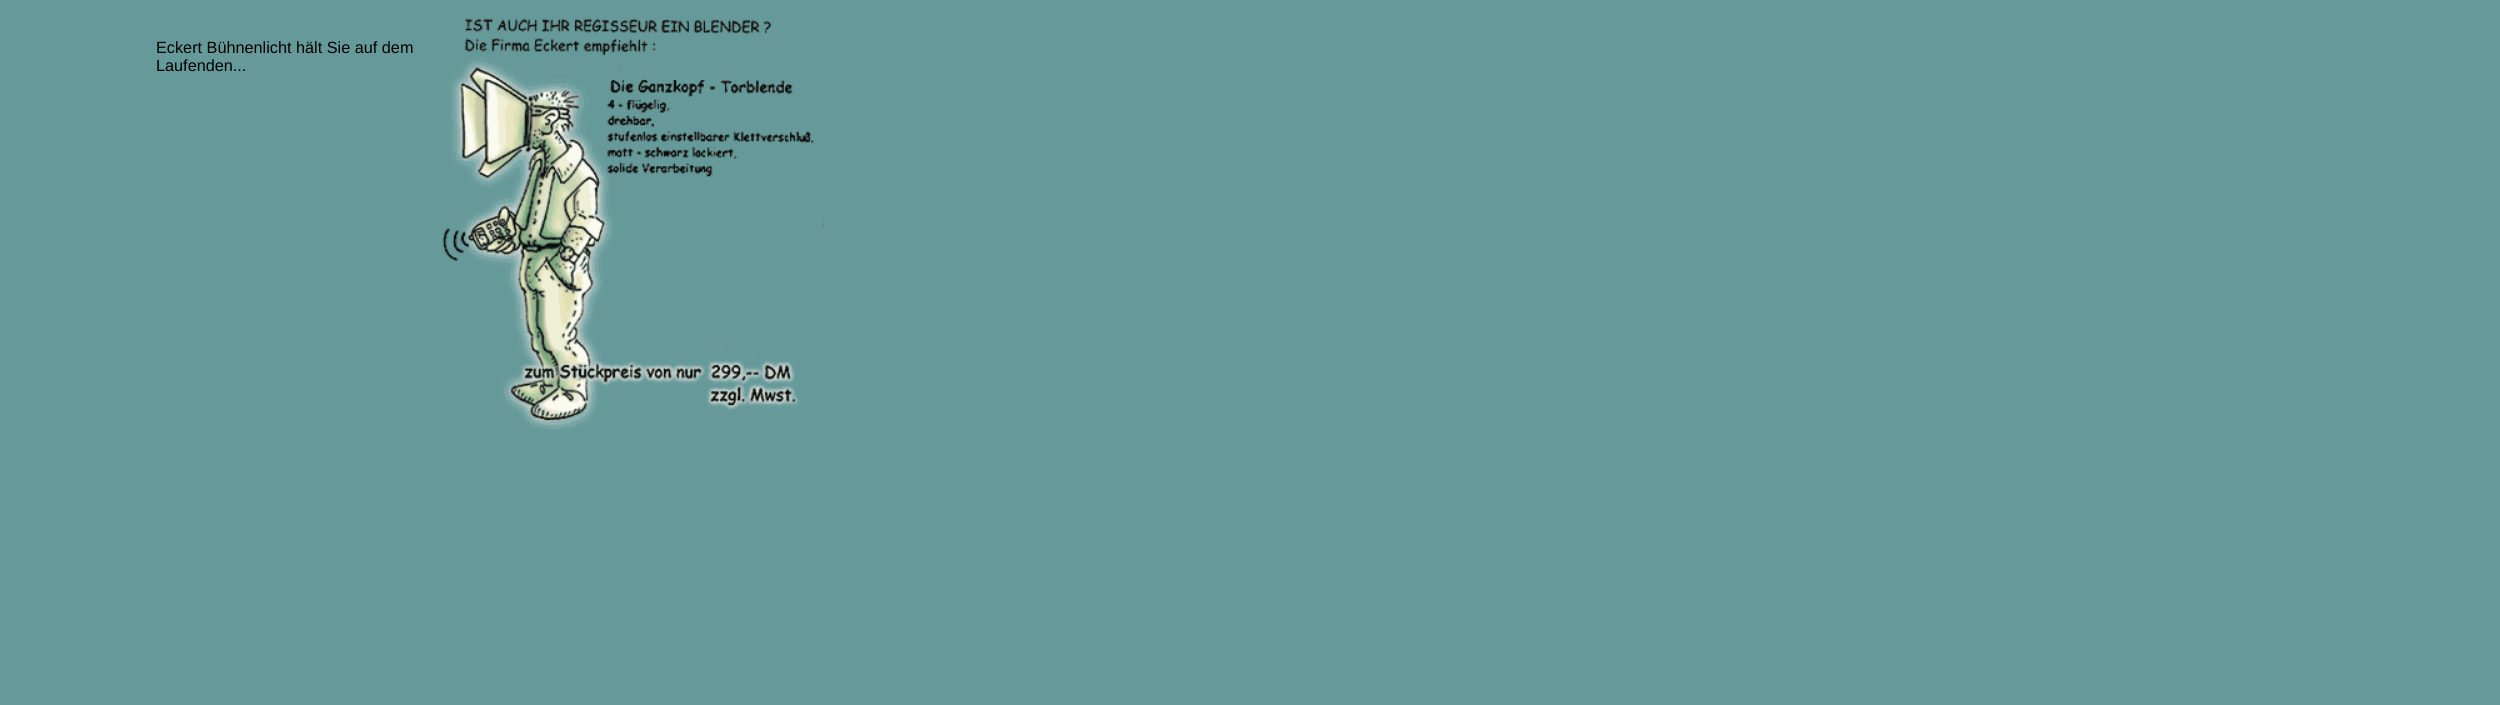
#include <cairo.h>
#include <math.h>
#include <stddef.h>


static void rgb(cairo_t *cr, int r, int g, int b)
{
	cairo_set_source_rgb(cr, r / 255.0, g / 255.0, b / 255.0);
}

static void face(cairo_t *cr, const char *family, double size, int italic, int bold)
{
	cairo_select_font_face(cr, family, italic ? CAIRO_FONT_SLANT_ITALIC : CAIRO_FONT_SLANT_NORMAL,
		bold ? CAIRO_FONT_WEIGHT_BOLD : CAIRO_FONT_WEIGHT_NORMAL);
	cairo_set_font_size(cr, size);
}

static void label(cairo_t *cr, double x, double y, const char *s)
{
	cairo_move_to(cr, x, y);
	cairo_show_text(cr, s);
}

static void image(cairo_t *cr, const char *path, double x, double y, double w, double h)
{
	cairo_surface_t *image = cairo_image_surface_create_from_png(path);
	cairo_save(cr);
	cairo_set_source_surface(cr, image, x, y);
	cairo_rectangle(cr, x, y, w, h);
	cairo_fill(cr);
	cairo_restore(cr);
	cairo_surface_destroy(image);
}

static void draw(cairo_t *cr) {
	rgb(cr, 102, 153, 153);
	cairo_paint(cr);
	face(cr, "Liberation Sans", 16.25, 0, 0);
	rgb(cr, 0, 0, 0);
	label(cr, 156, 53, "Eckert Bühnenlicht hält Sie auf dem");
	label(cr, 156, 71, "Laufenden...");
	image(cr, "image0.png", 442, 18, 382, 413);
}

int main(void) {
	cairo_surface_t *surface = cairo_image_surface_create(CAIRO_FORMAT_RGB24, 2500, 705);
	cairo_t *cr = cairo_create(surface);
	cairo_font_options_t *options = cairo_font_options_create();
	cairo_font_options_set_hint_metrics(options, CAIRO_HINT_METRICS_OFF);
	cairo_font_options_set_hint_style(options, CAIRO_HINT_STYLE_NONE);
	cairo_set_font_options(cr, options);
	cairo_set_miter_limit(cr, 4);
	draw(cr);
	cairo_surface_write_to_png(surface, "render.png");
	cairo_font_options_destroy(options);
	cairo_destroy(cr);
	cairo_surface_destroy(surface);
	return 0;
}
